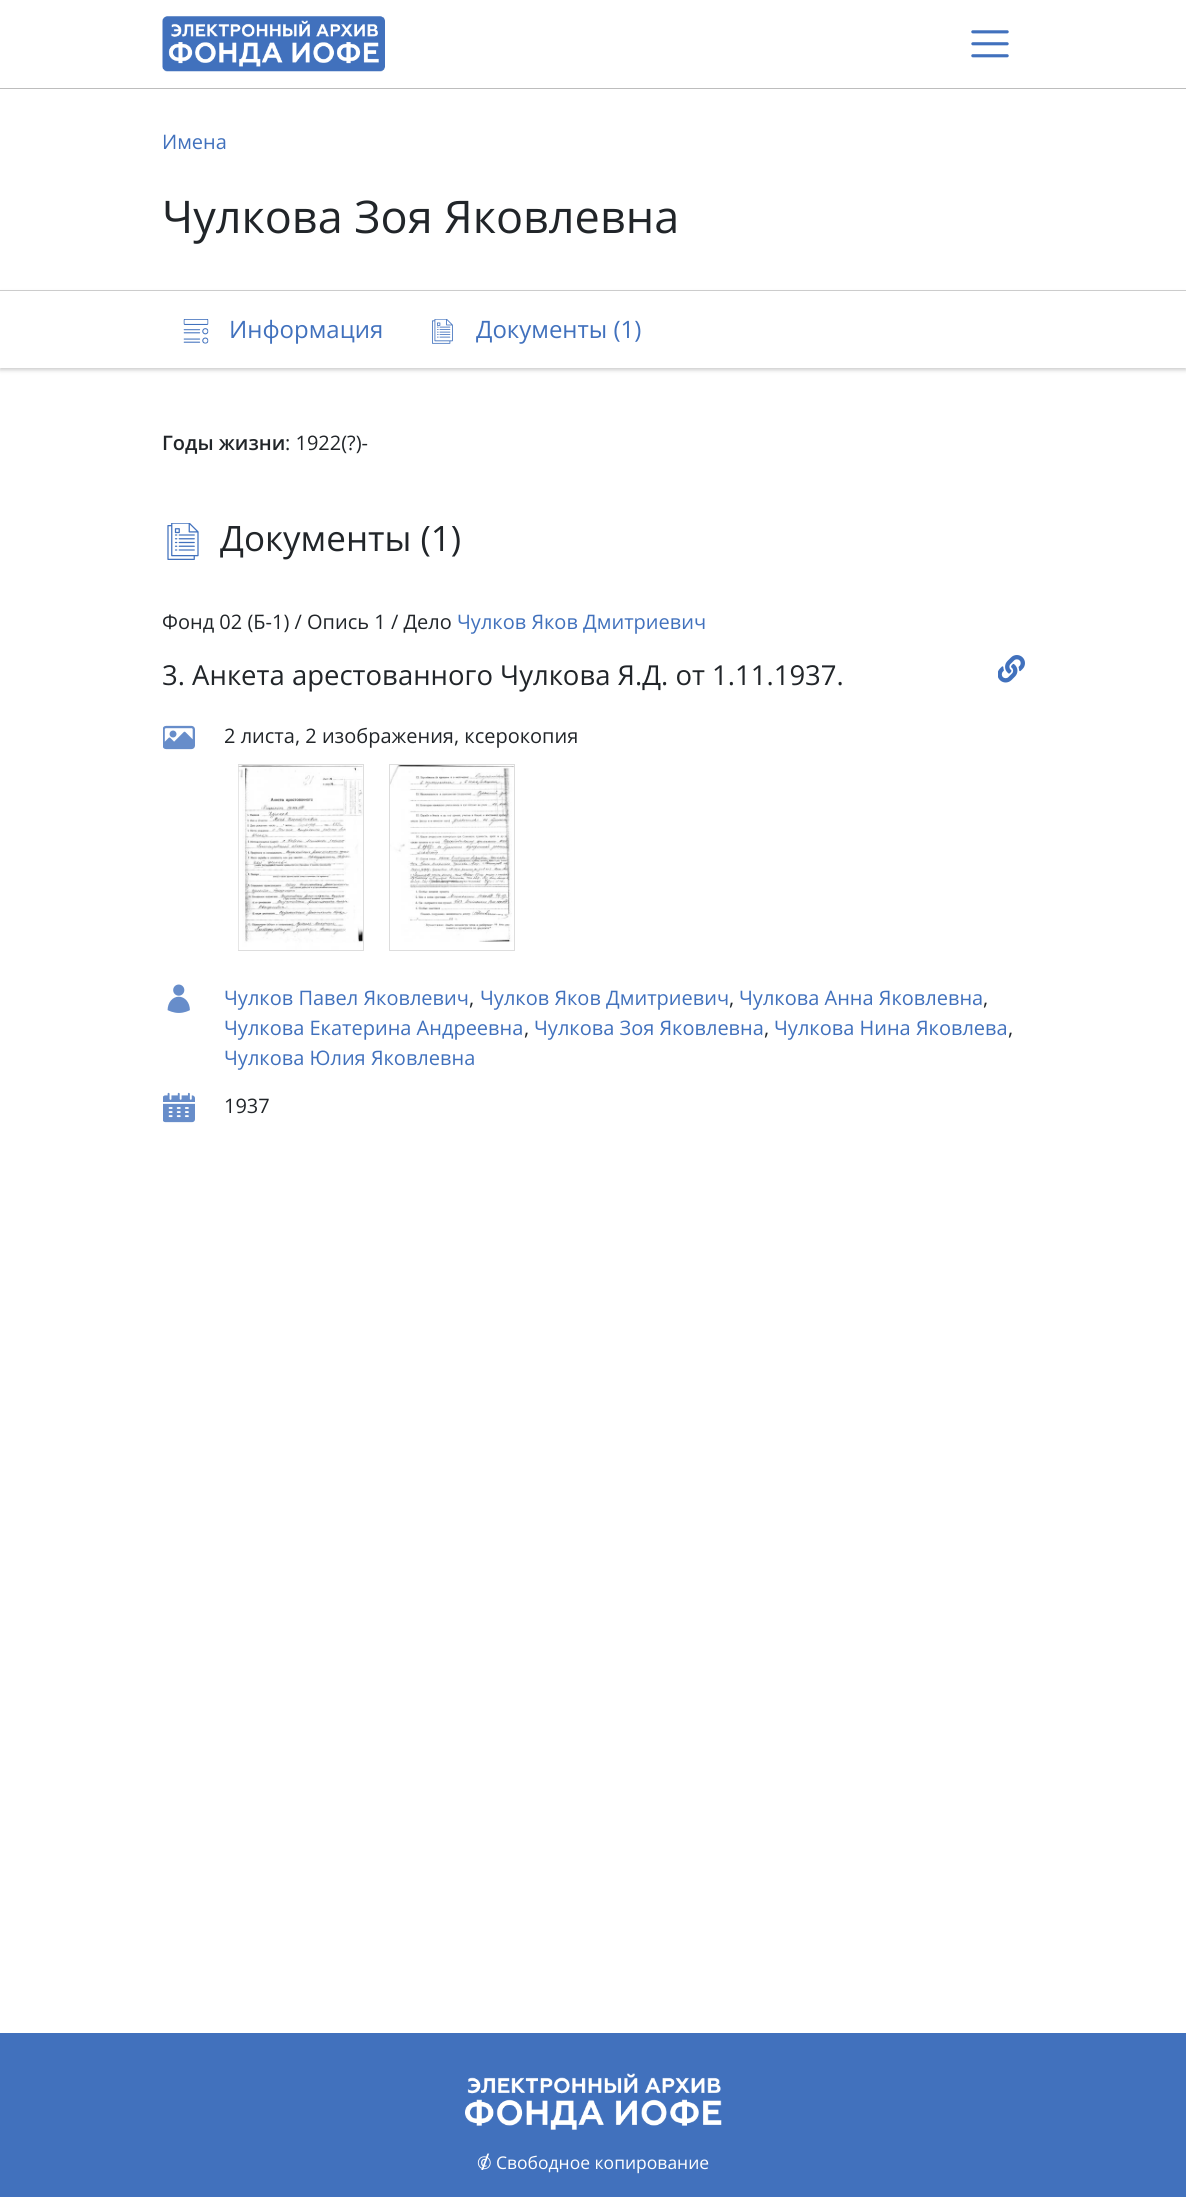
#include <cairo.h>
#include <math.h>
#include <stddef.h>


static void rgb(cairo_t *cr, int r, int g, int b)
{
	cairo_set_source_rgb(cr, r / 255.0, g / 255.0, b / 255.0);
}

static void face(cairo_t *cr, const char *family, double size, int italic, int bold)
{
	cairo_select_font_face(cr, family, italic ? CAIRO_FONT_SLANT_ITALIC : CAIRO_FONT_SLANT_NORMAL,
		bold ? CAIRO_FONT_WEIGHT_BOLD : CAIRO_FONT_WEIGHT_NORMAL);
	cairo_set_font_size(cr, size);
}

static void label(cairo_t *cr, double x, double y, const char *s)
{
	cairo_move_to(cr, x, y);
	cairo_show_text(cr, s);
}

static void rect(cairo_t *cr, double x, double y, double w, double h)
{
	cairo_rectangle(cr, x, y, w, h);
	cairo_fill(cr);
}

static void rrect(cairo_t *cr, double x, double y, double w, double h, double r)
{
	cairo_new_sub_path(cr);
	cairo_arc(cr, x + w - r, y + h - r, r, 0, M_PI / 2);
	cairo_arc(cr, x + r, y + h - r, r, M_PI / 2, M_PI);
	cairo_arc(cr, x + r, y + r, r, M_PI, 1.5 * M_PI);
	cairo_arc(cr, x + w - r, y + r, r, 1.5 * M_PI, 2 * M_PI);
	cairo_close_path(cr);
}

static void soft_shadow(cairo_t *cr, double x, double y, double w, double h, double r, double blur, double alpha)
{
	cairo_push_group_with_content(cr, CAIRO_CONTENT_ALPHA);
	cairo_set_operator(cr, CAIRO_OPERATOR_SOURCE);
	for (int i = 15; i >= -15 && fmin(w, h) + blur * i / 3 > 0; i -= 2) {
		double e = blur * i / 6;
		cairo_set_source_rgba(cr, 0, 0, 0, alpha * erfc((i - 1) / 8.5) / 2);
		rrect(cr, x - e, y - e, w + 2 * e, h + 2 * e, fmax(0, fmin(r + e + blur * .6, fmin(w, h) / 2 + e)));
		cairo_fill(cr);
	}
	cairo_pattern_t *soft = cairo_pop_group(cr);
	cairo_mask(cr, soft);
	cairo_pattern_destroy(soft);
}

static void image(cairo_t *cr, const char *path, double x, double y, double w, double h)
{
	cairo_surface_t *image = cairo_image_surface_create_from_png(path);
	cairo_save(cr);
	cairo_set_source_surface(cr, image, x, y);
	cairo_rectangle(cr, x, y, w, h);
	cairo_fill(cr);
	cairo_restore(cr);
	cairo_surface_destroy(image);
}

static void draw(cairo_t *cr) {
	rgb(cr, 255, 255, 255);
	cairo_paint(cr);
	rgb(cr, 189, 189, 189);
	rect(cr, 0, 88, 1186, 1);
	image(cr, "image0.png", 162, 16, 223, 56);
	image(cr, "image1.png", 971, 30, 38, 28);
	face(cr, "Open Sans", 20, 0, 0);
	rgb(cr, 65, 113, 189);
	label(cr, 162, 149, "Имена");
	face(cr, "Open Sans", 45, 0, 0);
	rgb(cr, 33, 37, 41);
	label(cr, 162, 233, "Чулкова Зоя Яковлевна");
	rgb(cr, 204, 204, 204);
	soft_shadow(cr, 0, 293, 1186, 77, 0, 2, 1);
	rgb(cr, 255, 255, 255);
	rect(cr, 0, 291, 1186, 77);
	rgb(cr, 204, 204, 204);
	rect(cr, 0, 290, 1186, 1);
	image(cr, "image2.png", 183, 319, 26, 25);
	face(cr, "Open Sans", 24, 0, 0);
	rgb(cr, 65, 113, 189);
	label(cr, 229, 338, "Информация");
	image(cr, "image3.png", 432, 319, 21, 25);
	label(cr, 476, 338, "Документы (1)");
	face(cr, "Open Sans SemiBold", 20, 0, 0);
	rgb(cr, 33, 37, 41);
	label(cr, 162, 450, "Годы жизни");
	face(cr, "Open Sans", 20, 0, 0);
	label(cr, 285, 450, ": 1922(?)-");
	image(cr, "image4.png", 167, 523, 32, 37);
	face(cr, "Open Sans", 35, 0, 0);
	label(cr, 220, 551, "Документы (1)");
	face(cr, "Open Sans", 20, 0, 0);
	label(cr, 162, 629, "Фонд 02 (Б-1) / Опись 1 / Дело");
	rgb(cr, 65, 113, 189);
	label(cr, 457, 629, "Чулков Яков Дмитриевич");
	face(cr, "Open Sans", 27.5, 0, 0);
	rgb(cr, 33, 37, 41);
	label(cr, 162, 685, "3. Анкета арестованного Чулкова Я.Д. от 1.11.1937.");
	image(cr, "image5.png", 998, 655, 27, 28);
	image(cr, "image6.png", 163, 725, 32, 25);
	face(cr, "Open Sans", 20, 0, 0);
	label(cr, 224, 743, "2 листа, 2 изображения, ксерокопия");
	cairo_rectangle(cr, 238.5, 764.5, 125, 186);
	rgb(cr, 221, 221, 221);
	cairo_set_line_width(cr, 1);
	cairo_stroke(cr);
	image(cr, "image7.png", 238, 765, 125, 185);
	cairo_rectangle(cr, 389.5, 764.5, 125, 186);
	cairo_stroke(cr);
	image(cr, "image8.png", 390, 765, 124, 177);
	image(cr, "image9.png", 167, 984, 23, 29);
	rgb(cr, 65, 113, 189);
	label(cr, 224, 1005, "Чулков Павел Яковлевич");
	rgb(cr, 33, 37, 41);
	label(cr, 469, 1005, ",");
	rgb(cr, 65, 113, 189);
	label(cr, 480, 1005, "Чулков Яков Дмитриевич");
	rgb(cr, 33, 37, 41);
	label(cr, 729, 1005, ",");
	rgb(cr, 65, 113, 189);
	label(cr, 739, 1005, "Чулкова Анна Яковлевна");
	rgb(cr, 33, 37, 41);
	label(cr, 983, 1005, ",");
	rgb(cr, 65, 113, 189);
	label(cr, 224, 1035, "Чулкова Екатерина Андреевна");
	rgb(cr, 33, 37, 41);
	label(cr, 524, 1035, ",");
	rgb(cr, 65, 113, 189);
	label(cr, 534, 1035, "Чулкова Зоя Яковлевна");
	rgb(cr, 33, 37, 41);
	label(cr, 764, 1035, ",");
	rgb(cr, 65, 113, 189);
	label(cr, 774, 1035, "Чулкова Нина Яковлева");
	rgb(cr, 33, 37, 41);
	label(cr, 1008, 1035, ",");
	rgb(cr, 65, 113, 189);
	label(cr, 224, 1065, "Чулкова Юлия Яковлевна");
	image(cr, "image10.png", 163, 1092, 32, 31);
	rgb(cr, 33, 37, 41);
	label(cr, 224, 1113, "1937");
	rgb(cr, 65, 113, 189);
	rect(cr, 0, 2033, 1186, 164);
	image(cr, "image11.png", 465, 2073, 257, 57);
	face(cr, "Open Sans", 17.5, 0, 0);
	rgb(cr, 255, 255, 255);
	label(cr, 477, 2169, "©");
	face(cr, "Open Sans", 23, 0, 0);
	label(cr, 481, 2170, "/");
	face(cr, "Open Sans", 17.5, 0, 0);
	label(cr, 496, 2169, "Свободное копирование");
}

int main(void) {
	cairo_surface_t *surface = cairo_image_surface_create(CAIRO_FORMAT_RGB24, 1186, 2197);
	cairo_t *cr = cairo_create(surface);
	cairo_font_options_t *options = cairo_font_options_create();
	cairo_font_options_set_hint_metrics(options, CAIRO_HINT_METRICS_OFF);
	cairo_font_options_set_hint_style(options, CAIRO_HINT_STYLE_NONE);
	cairo_set_font_options(cr, options);
	cairo_set_miter_limit(cr, 4);
	draw(cr);
	cairo_surface_write_to_png(surface, "render.png");
	cairo_font_options_destroy(options);
	cairo_destroy(cr);
	cairo_surface_destroy(surface);
	return 0;
}
